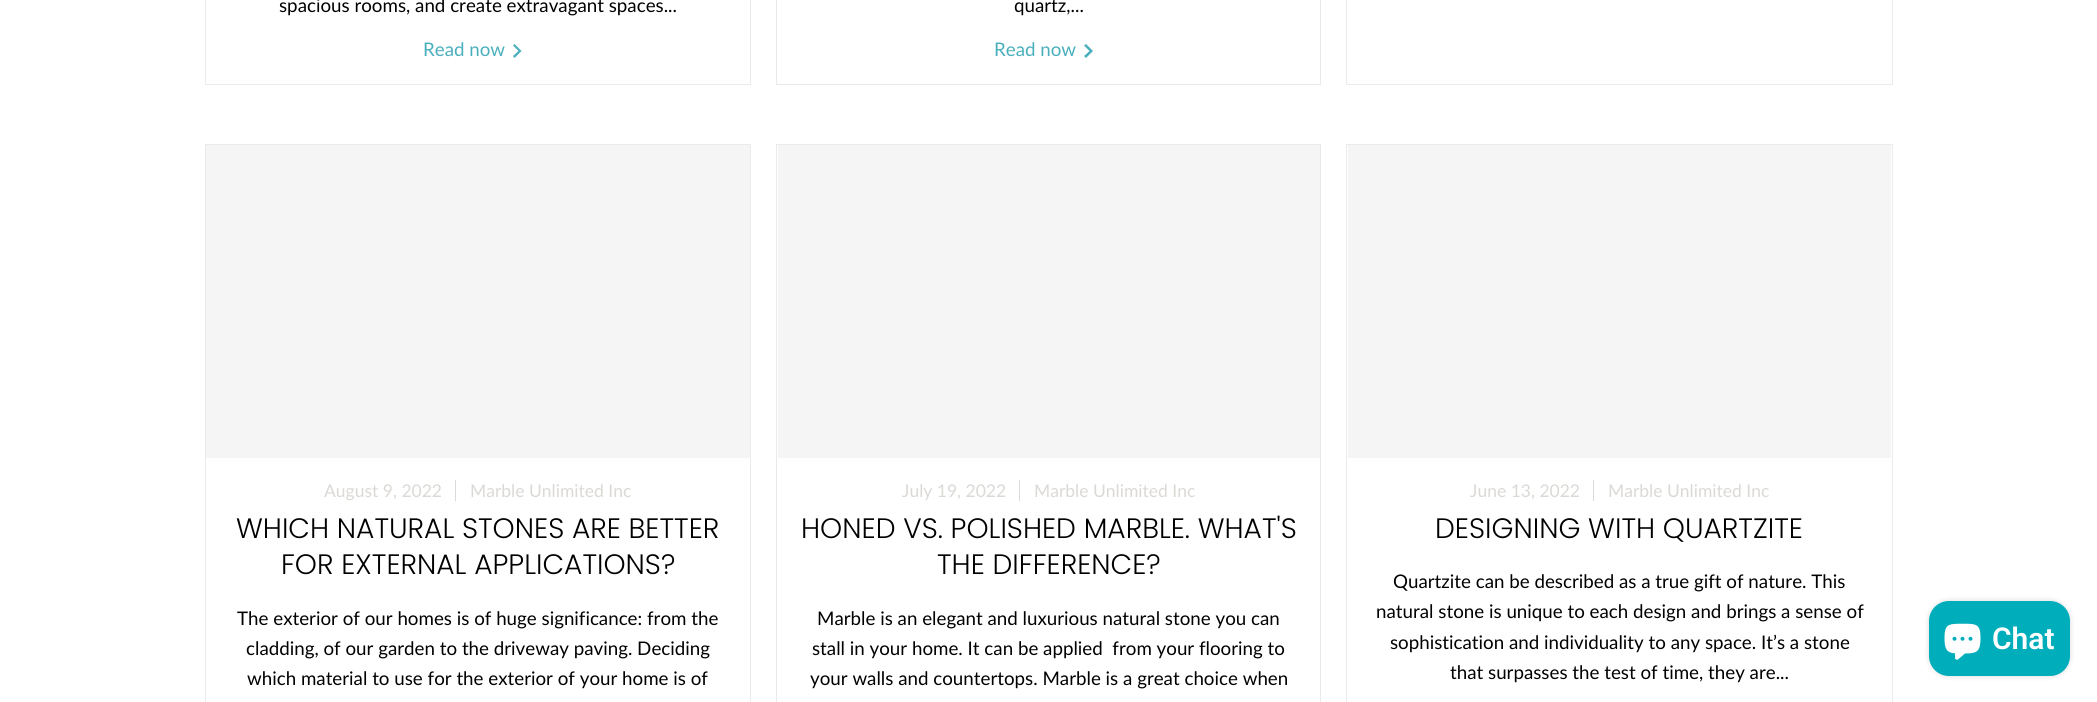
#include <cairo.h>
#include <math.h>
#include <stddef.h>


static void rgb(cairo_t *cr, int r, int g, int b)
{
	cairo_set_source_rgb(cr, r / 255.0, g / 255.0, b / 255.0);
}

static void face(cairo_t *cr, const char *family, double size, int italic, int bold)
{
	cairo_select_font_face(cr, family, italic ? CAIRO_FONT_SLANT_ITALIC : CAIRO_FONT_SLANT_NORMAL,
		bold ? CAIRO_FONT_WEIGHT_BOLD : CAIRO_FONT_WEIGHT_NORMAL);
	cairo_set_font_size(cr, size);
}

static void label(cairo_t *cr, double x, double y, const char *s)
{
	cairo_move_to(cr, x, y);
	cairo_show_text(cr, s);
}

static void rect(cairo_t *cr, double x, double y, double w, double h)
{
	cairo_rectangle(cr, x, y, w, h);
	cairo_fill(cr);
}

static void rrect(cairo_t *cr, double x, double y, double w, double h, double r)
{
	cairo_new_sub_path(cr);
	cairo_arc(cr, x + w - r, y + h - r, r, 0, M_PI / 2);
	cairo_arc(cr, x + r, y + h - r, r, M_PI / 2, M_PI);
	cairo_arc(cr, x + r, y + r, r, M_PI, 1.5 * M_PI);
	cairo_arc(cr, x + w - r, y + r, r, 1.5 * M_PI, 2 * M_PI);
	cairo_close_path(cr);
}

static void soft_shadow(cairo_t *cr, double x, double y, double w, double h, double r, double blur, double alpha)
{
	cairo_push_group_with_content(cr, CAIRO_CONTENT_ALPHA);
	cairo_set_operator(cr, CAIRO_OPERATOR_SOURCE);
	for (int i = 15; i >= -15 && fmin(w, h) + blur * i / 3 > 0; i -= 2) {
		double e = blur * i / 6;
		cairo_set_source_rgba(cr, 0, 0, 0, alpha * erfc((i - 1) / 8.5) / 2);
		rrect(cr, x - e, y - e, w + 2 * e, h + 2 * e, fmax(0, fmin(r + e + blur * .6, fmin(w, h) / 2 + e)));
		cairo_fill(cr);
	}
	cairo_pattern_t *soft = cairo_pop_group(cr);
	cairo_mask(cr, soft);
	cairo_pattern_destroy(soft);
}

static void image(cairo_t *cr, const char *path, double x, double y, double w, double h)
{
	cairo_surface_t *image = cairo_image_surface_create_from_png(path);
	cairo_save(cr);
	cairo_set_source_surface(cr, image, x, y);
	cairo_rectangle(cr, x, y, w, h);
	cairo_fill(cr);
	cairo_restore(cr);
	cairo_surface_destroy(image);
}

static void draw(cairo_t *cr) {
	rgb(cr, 255, 255, 255);
	cairo_paint(cr);
	cairo_rectangle(cr, 205.5, -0.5, 545, 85);
	rgb(cr, 235, 235, 235);
	cairo_set_line_width(cr, 1);
	cairo_stroke(cr);
	face(cr, "Lato", 18.75, 0, 0);
	rgb(cr, 0, 0, 0);
	label(cr, 279, 12, "spacious rooms, and create extravagant spaces...");
	rgb(cr, 73, 175, 188);
	label(cr, 423, 56, "Read now");
	cairo_set_fill_rule(cr, CAIRO_FILL_RULE_EVEN_ODD);
	cairo_new_path(cr);
	cairo_move_to(cr, 518.5, 51);
	cairo_line_to(cr, 513, 45.5);
	cairo_line_to(cr, 514.5, 44);
	cairo_line_to(cr, 521.5, 51);
	cairo_line_to(cr, 514.5, 58);
	cairo_line_to(cr, 513, 56);
	cairo_close_path(cr);
	cairo_fill(cr);
	cairo_rectangle(cr, 776.5, -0.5, 544, 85);
	rgb(cr, 234, 234, 234);
	cairo_stroke(cr);
	rgb(cr, 0, 0, 0);
	label(cr, 1014, 12, "quartz,...");
	rgb(cr, 73, 175, 188);
	label(cr, 994, 56, "Read now");
	cairo_new_path(cr);
	cairo_move_to(cr, 1089.5, 51);
	cairo_line_to(cr, 1084, 45.5);
	cairo_line_to(cr, 1086, 44);
	cairo_line_to(cr, 1093, 51);
	cairo_line_to(cr, 1086, 58);
	cairo_line_to(cr, 1084, 56);
	cairo_close_path(cr);
	cairo_fill(cr);
	cairo_rectangle(cr, 1346.5, -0.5, 546, 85);
	cairo_set_source_rgba(cr, 0.502, 0.502, 0.502, 0.16);
	cairo_stroke(cr);
	cairo_rectangle(cr, 205.5, 144.5, 545, 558);
	rgb(cr, 235, 235, 235);
	cairo_stroke(cr);
	rgb(cr, 245, 245, 245);
	rect(cr, 206, 145, 544, 313);
	face(cr, "Lato", 17.5, 0, 0);
	rgb(cr, 219, 217, 213);
	label(cr, 324, 497, "August 9, 2022");
	rect(cr, 455, 480, 1, 21);
	label(cr, 470, 497, "Marble Unlimited Inc");
	face(cr, "Poppins Light", 28.1, 0, 0);
	rgb(cr, 0, 0, 0);
	label(cr, 236, 538, "WHICH NATURAL STONES ARE BETTER");
	label(cr, 281, 574, "FOR EXTERNAL APPLICATIONS?");
	face(cr, "Lato", 18.75, 0, 0);
	label(cr, 237, 625, "The exterior of our homes is of huge significance: from the");
	label(cr, 246, 655, "cladding, of our garden to the driveway paving. Deciding");
	label(cr, 247, 685, "which material to use for the exterior of your home is of");
	cairo_rectangle(cr, 776.5, 144.5, 544, 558);
	rgb(cr, 234, 234, 234);
	cairo_stroke(cr);
	rgb(cr, 245, 245, 245);
	rect(cr, 778, 145, 542, 313);
	face(cr, "Lato", 17.5, 0, 0);
	rgb(cr, 219, 217, 213);
	label(cr, 902, 497, "July 19, 2022");
	rect(cr, 1019, 480, 1, 21);
	label(cr, 1034, 497, "Marble Unlimited Inc");
	face(cr, "Poppins Light", 28.1, 0, 0);
	rgb(cr, 0, 0, 0);
	label(cr, 801, 538, "HONED VS. POLISHED MARBLE. WHAT'S");
	label(cr, 937, 574, "THE DIFFERENCE?");
	face(cr, "Lato", 18.75, 0, 0);
	label(cr, 817, 625, "Marble is an elegant and luxurious natural stone you can");
	label(cr, 812, 655, "stall in your home. It can be applied  from your flooring to");
	label(cr, 810, 685, "your walls and countertops. Marble is a great choice when");
	cairo_rectangle(cr, 1346.5, 144.5, 546, 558);
	cairo_set_source_rgba(cr, 0.502, 0.502, 0.502, 0.16);
	cairo_stroke(cr);
	rgb(cr, 245, 245, 245);
	rect(cr, 1348, 145, 543, 313);
	face(cr, "Lato", 17.5, 0, 0);
	rgb(cr, 219, 217, 213);
	label(cr, 1470, 497, "June 13, 2022");
	rect(cr, 1593, 480, 1, 21);
	label(cr, 1608, 497, "Marble Unlimited Inc");
	face(cr, "Poppins Light", 28.1, 0, 0);
	rgb(cr, 0, 0, 0);
	label(cr, 1435, 538, "DESIGNING WITH QUARTZITE");
	face(cr, "Lato", 18.75, 0, 0);
	label(cr, 1393, 588, "Quartzite can be described as a true gift of nature. This");
	label(cr, 1376, 618, "natural stone is unique to each design and brings a sense of");
	label(cr, 1390, 649, "sophistication and individuality to any space. It’s a stone");
	label(cr, 1450, 679, "that surpasses the test of time, they are...");
	rgb(cr, 0, 0, 0);
	soft_shadow(cr, 1929, 601, 141, 75, 20, 3, 0.15);
	rgb(cr, 0, 173, 186);
	rrect(cr, 1929, 601, 141, 75, 20);
	cairo_fill(cr);
	image(cr, "image0.png", 1944, 623, 37, 37);
	face(cr, "Roboto SemiBold", 30, 0, 0);
	rgb(cr, 255, 255, 255);
	label(cr, 1992, 649, "Chat");
}

int main(void) {
	cairo_surface_t *surface = cairo_image_surface_create(CAIRO_FORMAT_RGB24, 2097, 702);
	cairo_t *cr = cairo_create(surface);
	cairo_font_options_t *options = cairo_font_options_create();
	cairo_font_options_set_hint_metrics(options, CAIRO_HINT_METRICS_OFF);
	cairo_font_options_set_hint_style(options, CAIRO_HINT_STYLE_NONE);
	cairo_set_font_options(cr, options);
	cairo_set_miter_limit(cr, 4);
	draw(cr);
	cairo_surface_write_to_png(surface, "render.png");
	cairo_font_options_destroy(options);
	cairo_destroy(cr);
	cairo_surface_destroy(surface);
	return 0;
}
